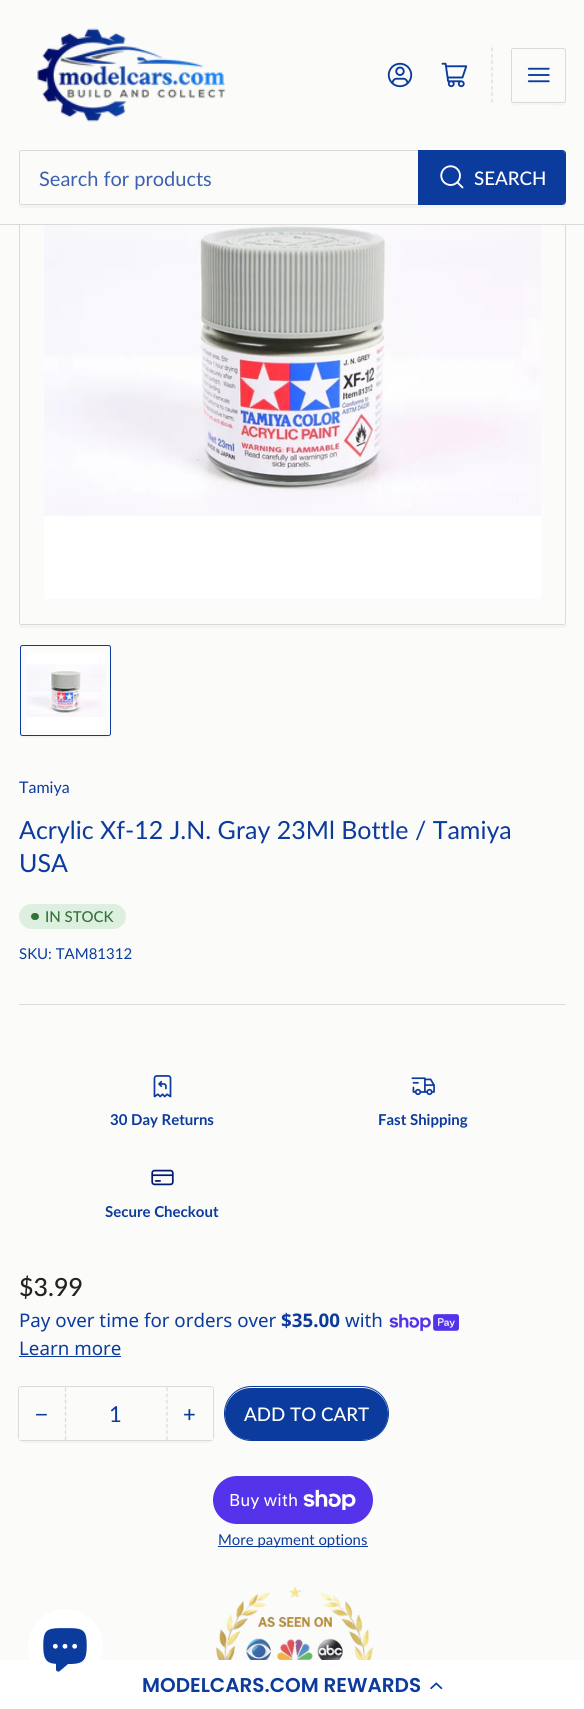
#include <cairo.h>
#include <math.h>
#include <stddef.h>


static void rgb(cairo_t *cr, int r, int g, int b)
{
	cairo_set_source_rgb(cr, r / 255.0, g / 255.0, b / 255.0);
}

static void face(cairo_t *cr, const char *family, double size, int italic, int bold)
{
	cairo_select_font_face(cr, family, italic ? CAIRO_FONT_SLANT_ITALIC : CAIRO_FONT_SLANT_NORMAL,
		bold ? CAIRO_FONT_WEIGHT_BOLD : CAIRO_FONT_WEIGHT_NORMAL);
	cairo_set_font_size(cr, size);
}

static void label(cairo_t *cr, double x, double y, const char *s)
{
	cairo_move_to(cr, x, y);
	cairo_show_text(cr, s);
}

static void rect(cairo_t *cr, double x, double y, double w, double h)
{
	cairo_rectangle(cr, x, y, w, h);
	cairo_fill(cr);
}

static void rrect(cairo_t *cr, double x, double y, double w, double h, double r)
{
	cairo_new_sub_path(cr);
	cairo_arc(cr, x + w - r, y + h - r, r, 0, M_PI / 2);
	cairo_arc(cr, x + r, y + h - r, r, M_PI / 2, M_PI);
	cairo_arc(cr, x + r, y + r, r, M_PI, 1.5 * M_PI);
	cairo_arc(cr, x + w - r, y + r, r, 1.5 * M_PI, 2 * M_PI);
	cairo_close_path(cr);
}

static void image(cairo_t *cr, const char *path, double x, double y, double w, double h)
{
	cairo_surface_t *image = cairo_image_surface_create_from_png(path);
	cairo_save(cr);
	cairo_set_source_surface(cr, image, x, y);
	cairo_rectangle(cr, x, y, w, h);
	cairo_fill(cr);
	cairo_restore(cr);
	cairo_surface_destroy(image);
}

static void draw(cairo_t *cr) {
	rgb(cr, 251, 251, 249);
	cairo_paint(cr);
	rgb(cr, 244, 244, 243);
	cairo_new_path(cr);
	cairo_move_to(cr, 19, 624);
	cairo_curve_to(cr, 19, 625, 19, 628, 22, 628);
	cairo_line_to(cr, 564, 628);
	cairo_line_to(cr, 566, 627);
	cairo_line_to(cr, 566, 624);
	cairo_curve_to(cr, 566, 624, 565, 625, 564, 625);
	cairo_line_to(cr, 21, 625);
	cairo_curve_to(cr, 20, 625, 19, 624, 19, 624);
	cairo_close_path(cr);
	cairo_fill(cr);
	rrect(cr, 19.5, 76.5, 546, 548, 2);
	rgb(cr, 218, 218, 218);
	cairo_set_line_width(cr, 1);
	cairo_stroke(cr);
	rgb(cr, 251, 251, 249);
	rect(cr, 19, 76, 547, 148);
	rgb(cr, 218, 218, 218);
	rect(cr, 0, 224, 584, 1);
	image(cr, "image0.png", 37, 28, 189, 94);
	image(cr, "image1.png", 387, 62, 26, 26);
	image(cr, "image2.png", 441, 62, 27, 26);
	cairo_new_path(cr);
	cairo_move_to(cr, 492, 47.5);
	cairo_line_to(cr, 492, 102.5);
	cairo_set_line_width(cr, 1.2);
	cairo_set_dash(cr, (double[]){3.75, 2.65}, 2, 0);
	cairo_stroke(cr);
	rgb(cr, 244, 244, 243);
	cairo_new_path(cr);
	cairo_move_to(cr, 511, 51);
	cairo_line_to(cr, 511, 102);
	cairo_curve_to(cr, 511, 107, 521, 105, 522, 105);
	cairo_line_to(cr, 555, 105);
	cairo_curve_to(cr, 560, 105, 566, 107, 566, 101);
	cairo_curve_to(cr, 566, 102, 565, 102, 564, 102);
	cairo_line_to(cr, 514, 102);
	cairo_curve_to(cr, 512, 102, 511, 101, 511, 100);
	cairo_close_path(cr);
	cairo_fill(cr);
	rrect(cr, 511.5, 48.5, 54, 54, 2);
	rgb(cr, 218, 218, 218);
	cairo_set_line_width(cr, 1);
	cairo_set_dash(cr, NULL, 0, 0);
	cairo_stroke(cr);
	image(cr, "image3.png", 527, 67, 23, 16);
	rgb(cr, 244, 244, 243);
	cairo_new_path(cr);
	cairo_move_to(cr, 19, 204);
	cairo_curve_to(cr, 19, 205, 19, 208, 22, 208);
	cairo_line_to(cr, 564, 208);
	cairo_line_to(cr, 566, 207);
	cairo_line_to(cr, 566, 204);
	cairo_curve_to(cr, 566, 204, 565, 205, 564, 205);
	cairo_line_to(cr, 21, 205);
	cairo_curve_to(cr, 20, 205, 19, 204, 19, 204);
	cairo_close_path(cr);
	cairo_fill(cr);
	rrect(cr, 19.5, 150.5, 546, 54, 2);
	rgb(cr, 218, 218, 218);
	cairo_stroke(cr);
	face(cr, "Lato", 20, 0, 0);
	rgb(cr, 60, 97, 176);
	label(cr, 39, 186, "Search for products");
	cairo_new_path(cr);
	cairo_move_to(cr, 418.5, 150.5);
	cairo_line_to(cr, 562, 150.5);
	cairo_curve_to(cr, 564, 150.5, 565.5, 152, 565.5, 154);
	cairo_line_to(cr, 565.5, 201);
	cairo_curve_to(cr, 565.5, 203, 564, 204.5, 562, 204.5);
	cairo_line_to(cr, 418.5, 204.5);
	cairo_close_path(cr);
	rgb(cr, 12, 59, 158);
	cairo_stroke(cr);
	cairo_new_path(cr);
	cairo_move_to(cr, 419, 151);
	cairo_line_to(cr, 562.5, 151);
	cairo_curve_to(cr, 564, 151, 565, 152, 565, 153.5);
	cairo_line_to(cr, 565, 201.5);
	cairo_curve_to(cr, 565, 203, 564, 204, 562.5, 204);
	cairo_line_to(cr, 419, 204);
	cairo_close_path(cr);
	cairo_fill(cr);
	image(cr, "image4.png", 440, 165, 24, 24);
	face(cr, "Lato Medium", 18.75, 0, 0);
	rgb(cr, 255, 255, 255);
	label(cr, 474, 185, "SEARCH");
	image(cr, "image5.png", 44, 225, 497, 374);
	cairo_save(cr);
	cairo_rectangle(cr, 19, 644, 547, 94);
	cairo_clip(cr);
	rgb(cr, 244, 244, 243);
	cairo_new_path(cr);
	cairo_move_to(cr, 20, 734);
	cairo_line_to(cr, 20, 736);
	cairo_curve_to(cr, 20, 738, 21, 739, 22, 739);
	cairo_line_to(cr, 108, 739);
	cairo_curve_to(cr, 110, 739, 111, 738, 111, 736);
	cairo_line_to(cr, 111, 735);
	cairo_curve_to(cr, 111, 736, 110, 736, 109, 736);
	cairo_line_to(cr, 22, 736);
	cairo_curve_to(cr, 21, 736, 20, 735, 20, 734);
	cairo_close_path(cr);
	cairo_fill(cr);
	cairo_restore(cr);
	rrect(cr, 20.5, 645.5, 90, 90, 2);
	rgb(cr, 12, 59, 158);
	cairo_stroke(cr);
	image(cr, "image6.png", 26, 651, 79, 79);
	rgb(cr, 218, 218, 218);
	rect(cr, 19, 1004, 547, 1);
	face(cr, "Lato", 16, 0, 0);
	rgb(cr, 12, 59, 158);
	label(cr, 19, 793, "Tamiya");
	face(cr, "Lato", 25, 0, 0);
	label(cr, 19, 839, "Acrylic Xf-12 J.N. Gray 23Ml Bottle / Tamiya");
	label(cr, 19, 872, "USA");
	rgb(cr, 221, 240, 223);
	rrect(cr, 19, 904, 107, 25, 12.5);
	cairo_fill(cr);
	rgb(cr, 51, 114, 57);
	rrect(cr, 31, 913, 8, 7, 3.5);
	cairo_fill(cr);
	face(cr, "Lato Medium", 15, 0, 0);
	label(cr, 45, 922, "IN STOCK");
	face(cr, "Lato", 15, 0, 0);
	rgb(cr, 12, 59, 158);
	label(cr, 19, 959, "SKU: TAM81312");
	image(cr, "image7.png", 153, 1075, 19, 23);
	face(cr, "Lato", 15, 0, 1);
	label(cr, 110, 1125, "30 Day Returns");
	image(cr, "image8.png", 411, 1077, 24, 19);
	label(cr, 378, 1125, "Fast Shipping");
	image(cr, "image9.png", 151, 1169, 23, 17);
	label(cr, 105, 1217, "Secure Checkout");
	face(cr, "Lato Medium", 25, 0, 0);
	rgb(cr, 35, 35, 35);
	label(cr, 19, 1296, "$3.99");
	face(cr, "Noto Sans", 18.75, 0, 0);
	rgb(cr, 12, 59, 158);
	label(cr, 19, 1327, "Pay over time for orders over");
	face(cr, "Noto Sans", 18.75, 0, 1);
	label(cr, 281, 1327, "$35.00");
	face(cr, "Noto Sans", 18.75, 0, 0);
	label(cr, 345, 1327, "with");
	image(cr, "image10.png", 389, 1314, 70, 17);
	label(cr, 19, 1355, "Learn more");
	rect(cr, 19, 1356, 102, 1);
	rgb(cr, 244, 244, 243);
	cairo_new_path(cr);
	cairo_move_to(cr, 19, 1439);
	cairo_line_to(cr, 19, 1440);
	cairo_curve_to(cr, 19, 1442, 20, 1443, 22, 1443);
	cairo_line_to(cr, 210, 1443);
	cairo_curve_to(cr, 212, 1443, 213, 1442, 213, 1440);
	cairo_line_to(cr, 213, 1392);
	cairo_line_to(cr, 212, 1391);
	cairo_line_to(cr, 212, 1438);
	cairo_curve_to(cr, 212, 1439, 211, 1440, 210, 1440);
	cairo_line_to(cr, 21, 1440);
	cairo_curve_to(cr, 20, 1440, 19, 1439, 19, 1439);
	cairo_close_path(cr);
	cairo_fill(cr);
	rrect(cr, 18.5, 1386.5, 195, 54, 3.5);
	rgb(cr, 218, 218, 218);
	cairo_stroke(cr);
	rgb(cr, 251, 251, 249);
	rect(cr, 19, 1388, 3, 52);
	face(cr, "Liberation Sans", 22, 0, 0);
	rgb(cr, 12, 59, 158);
	label(cr, 35, 1422, "−");
	cairo_new_path(cr);
	cairo_move_to(cr, 167, 1387.5);
	cairo_line_to(cr, 167, 1440);
	rgb(cr, 218, 218, 218);
	cairo_set_line_width(cr, 1.2);
	cairo_set_dash(cr, (double[]){3.75, 2.35}, 2, 0);
	cairo_stroke(cr);
	cairo_new_path(cr);
	cairo_move_to(cr, 65.5, 1387.5);
	cairo_line_to(cr, 65.5, 1440);
	cairo_stroke(cr);
	face(cr, "Lato", 22, 0, 0);
	rgb(cr, 12, 59, 158);
	label(cr, 109, 1422, "1");
	rgb(cr, 251, 251, 249);
	rect(cr, 210, 1388, 3, 52);
	face(cr, "Lato Medium", 22, 0, 0);
	rgb(cr, 12, 59, 158);
	label(cr, 183, 1422, "+");
	rrect(cr, 224.5, 1386.5, 164, 54, 27);
	cairo_set_line_width(cr, 1);
	cairo_set_dash(cr, NULL, 0, 0);
	cairo_stroke(cr);
	rrect(cr, 225, 1388, 163, 52, 26);
	cairo_fill(cr);
	face(cr, "Lato Medium", 18.75, 0, 0);
	rgb(cr, 255, 255, 255);
	label(cr, 244, 1421, "ADD TO CART");
	rgb(cr, 84, 51, 235);
	rrect(cr, 213, 1476, 160, 48, 24);
	cairo_fill(cr);
	face(cr, "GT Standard", 17, 0, 0);
	rgb(cr, 255, 255, 255);
	label(cr, 229, 1506, "Buy with");
	image(cr, "image11.png", 303, 1489, 53, 21);
	rgb(cr, 12, 59, 158);
	rect(cr, 218, 1546, 150, 1);
	face(cr, "Lato", 14.9, 0, 0);
	label(cr, 218, 1545, "More payment options");
	image(cr, "image12.png", 215, 1587, 158, 73);
	rgb(cr, 255, 255, 255);
	rect(cr, 0, 1660, 584, 49);
	cairo_arc(cr, 65.5, 1646.5, 37.5, 0, 2 * M_PI);
	cairo_fill(cr);
	image(cr, "image13.png", 43, 1628, 44, 44);
	face(cr, "Poppins SemiBold", 20, 0, 0);
	rgb(cr, 12, 59, 158);
	label(cr, 142, 1692, "MODELCARS.COM REWARDS");
	image(cr, "image14.png", 430, 1682, 13, 8);
}

int main(void) {
	cairo_surface_t *surface = cairo_image_surface_create(CAIRO_FORMAT_RGB24, 584, 1709);
	cairo_t *cr = cairo_create(surface);
	cairo_font_options_t *options = cairo_font_options_create();
	cairo_font_options_set_hint_metrics(options, CAIRO_HINT_METRICS_OFF);
	cairo_font_options_set_hint_style(options, CAIRO_HINT_STYLE_NONE);
	cairo_set_font_options(cr, options);
	cairo_set_miter_limit(cr, 4);
	draw(cr);
	cairo_surface_write_to_png(surface, "render.png");
	cairo_font_options_destroy(options);
	cairo_destroy(cr);
	cairo_surface_destroy(surface);
	return 0;
}
